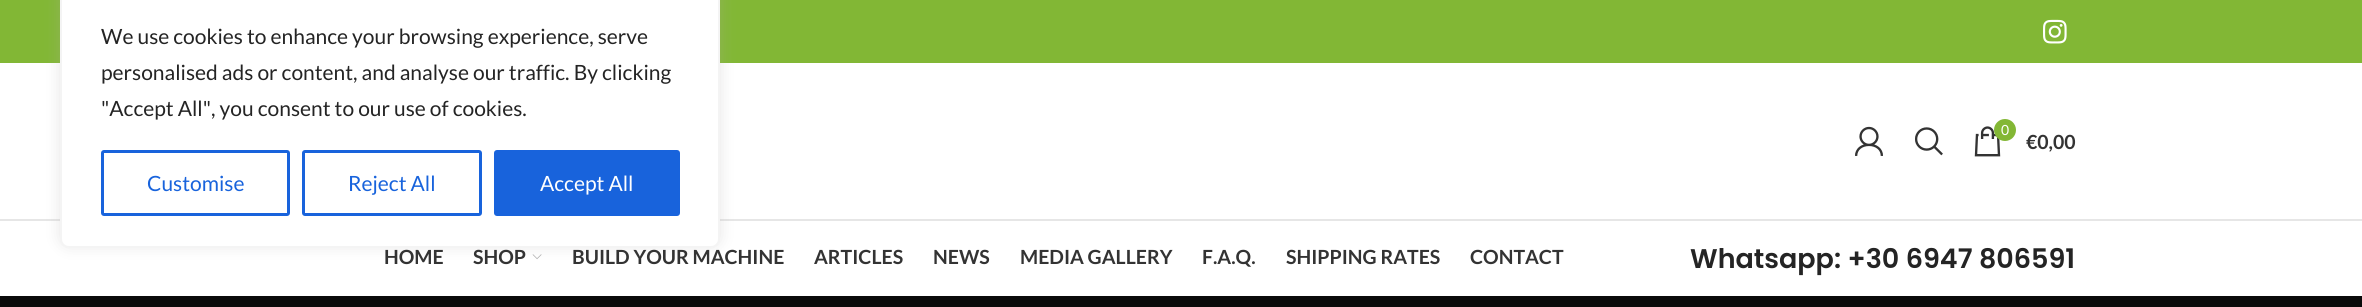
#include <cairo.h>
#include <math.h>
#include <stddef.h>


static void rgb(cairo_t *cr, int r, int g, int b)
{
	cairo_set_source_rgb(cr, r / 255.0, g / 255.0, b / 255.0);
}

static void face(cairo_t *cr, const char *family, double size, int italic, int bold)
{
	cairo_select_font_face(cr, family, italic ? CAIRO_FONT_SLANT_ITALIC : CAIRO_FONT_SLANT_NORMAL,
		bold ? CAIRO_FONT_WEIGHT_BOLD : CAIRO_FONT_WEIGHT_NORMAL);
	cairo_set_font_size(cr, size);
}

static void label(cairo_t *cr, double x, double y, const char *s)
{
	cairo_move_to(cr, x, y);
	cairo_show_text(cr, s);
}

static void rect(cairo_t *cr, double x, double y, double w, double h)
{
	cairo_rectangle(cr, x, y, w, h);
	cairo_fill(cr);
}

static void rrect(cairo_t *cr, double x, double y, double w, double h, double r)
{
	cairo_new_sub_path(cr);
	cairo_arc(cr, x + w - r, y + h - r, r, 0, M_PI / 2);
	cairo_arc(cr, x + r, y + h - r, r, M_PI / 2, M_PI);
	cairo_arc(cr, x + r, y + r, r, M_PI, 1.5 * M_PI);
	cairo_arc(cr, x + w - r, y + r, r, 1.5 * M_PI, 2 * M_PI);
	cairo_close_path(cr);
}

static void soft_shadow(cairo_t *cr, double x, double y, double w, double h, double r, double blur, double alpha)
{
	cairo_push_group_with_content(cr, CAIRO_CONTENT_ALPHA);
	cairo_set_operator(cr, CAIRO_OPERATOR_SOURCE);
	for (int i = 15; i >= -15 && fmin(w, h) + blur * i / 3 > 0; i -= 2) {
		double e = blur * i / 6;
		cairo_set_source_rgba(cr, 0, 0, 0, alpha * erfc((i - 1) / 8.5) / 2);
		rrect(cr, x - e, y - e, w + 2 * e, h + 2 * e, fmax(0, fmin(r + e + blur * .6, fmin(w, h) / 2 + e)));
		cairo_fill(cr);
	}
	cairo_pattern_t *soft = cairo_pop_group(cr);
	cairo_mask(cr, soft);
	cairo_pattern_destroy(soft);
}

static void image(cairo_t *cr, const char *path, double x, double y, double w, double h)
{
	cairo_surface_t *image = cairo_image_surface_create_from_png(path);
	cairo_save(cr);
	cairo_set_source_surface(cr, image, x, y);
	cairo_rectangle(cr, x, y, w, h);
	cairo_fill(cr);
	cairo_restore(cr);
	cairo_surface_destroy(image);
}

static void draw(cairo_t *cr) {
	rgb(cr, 255, 255, 255);
	cairo_paint(cr);
	rgb(cr, 130, 183, 53);
	rect(cr, 0, 0, 2362, 63);
	rgb(cr, 230, 230, 230);
	rect(cr, 0, 219, 2362, 2);
	image(cr, "image4.png", 532, 254, 10, 6);
	rgb(cr, 172, 171, 171);
	soft_shadow(cr, 60, -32, 660, 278, 9, 7.5, 0.3);
	rgb(cr, 255, 255, 255);
	rrect(cr, 61, -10, 658, 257, 8);
	cairo_fill_preserve(cr);
	rgb(cr, 244, 244, 244);
	cairo_stroke(cr);
	face(cr, "Lato", 21, 0, 0);
	rgb(cr, 36, 36, 36);
	label(cr, 101, 44, "We use cookies to enhance your browsing experience, serve");
	label(cr, 101, 80, "personalised ads or content, and analyse our traffic. By clicking");
	label(cr, 101, 116, "\"Accept All\", you consent to our use of cookies.");
	rrect(cr, 102.5, 151.5, 186, 63, 1.5);
	rgb(cr, 24, 99, 220);
	cairo_set_line_width(cr, 3);
	cairo_stroke(cr);
	label(cr, 147, 191, "Customise");
	rrect(cr, 303.5, 151.5, 177, 63, 1.5);
	cairo_stroke(cr);
	label(cr, 348, 191, "Reject All");
	rrect(cr, 495.5, 151.5, 183, 63, 1.5);
	cairo_fill_preserve(cr);
	cairo_stroke(cr);
	rgb(cr, 255, 255, 255);
	label(cr, 540, 191, "Accept All");
	image(cr, "image0.png", 2043, 19, 24, 25);
	image(cr, "image1.png", 1855, 126, 28, 30);
	image(cr, "image2.png", 1915, 127, 28, 29);
	image(cr, "image3.png", 1974, 126, 27, 31);
	rgb(cr, 131, 183, 53);
	cairo_arc(cr, 2005, 130, 11, 0, 2 * M_PI);
	cairo_fill(cr);
	face(cr, "Lato", 14, 0, 0);
	rgb(cr, 255, 255, 255);
	label(cr, 2001, 135, "0");
	face(cr, "Lato", 19.5, 0, 1);
	rgb(cr, 51, 51, 51);
	label(cr, 2026, 149, "€0,00");
	label(cr, 384, 264, "HOME");
	label(cr, 473, 264, "SHOP");
	label(cr, 572, 264, "BUILD YOUR MACHINE");
	label(cr, 814, 264, "ARTICLES");
	label(cr, 933, 264, "NEWS");
	label(cr, 1020, 264, "MEDIA GALLERY");
	label(cr, 1202, 264, "F.A.Q.");
	label(cr, 1286, 264, "SHIPPING RATES");
	label(cr, 1470, 264, "CONTACT");
	face(cr, "Poppins SemiBold", 27, 0, 0);
	rgb(cr, 36, 36, 36);
	label(cr, 1690, 268, "Whatsapp: +30 6947 806591");
	rgb(cr, 10, 10, 10);
	rect(cr, 0, 296, 2362, 11);
}

int main(void) {
	cairo_surface_t *surface = cairo_image_surface_create(CAIRO_FORMAT_RGB24, 2362, 307);
	cairo_t *cr = cairo_create(surface);
	cairo_font_options_t *options = cairo_font_options_create();
	cairo_font_options_set_hint_metrics(options, CAIRO_HINT_METRICS_OFF);
	cairo_font_options_set_hint_style(options, CAIRO_HINT_STYLE_NONE);
	cairo_set_font_options(cr, options);
	cairo_set_miter_limit(cr, 4);
	draw(cr);
	cairo_surface_write_to_png(surface, "render.png");
	cairo_font_options_destroy(options);
	cairo_destroy(cr);
	cairo_surface_destroy(surface);
	return 0;
}
